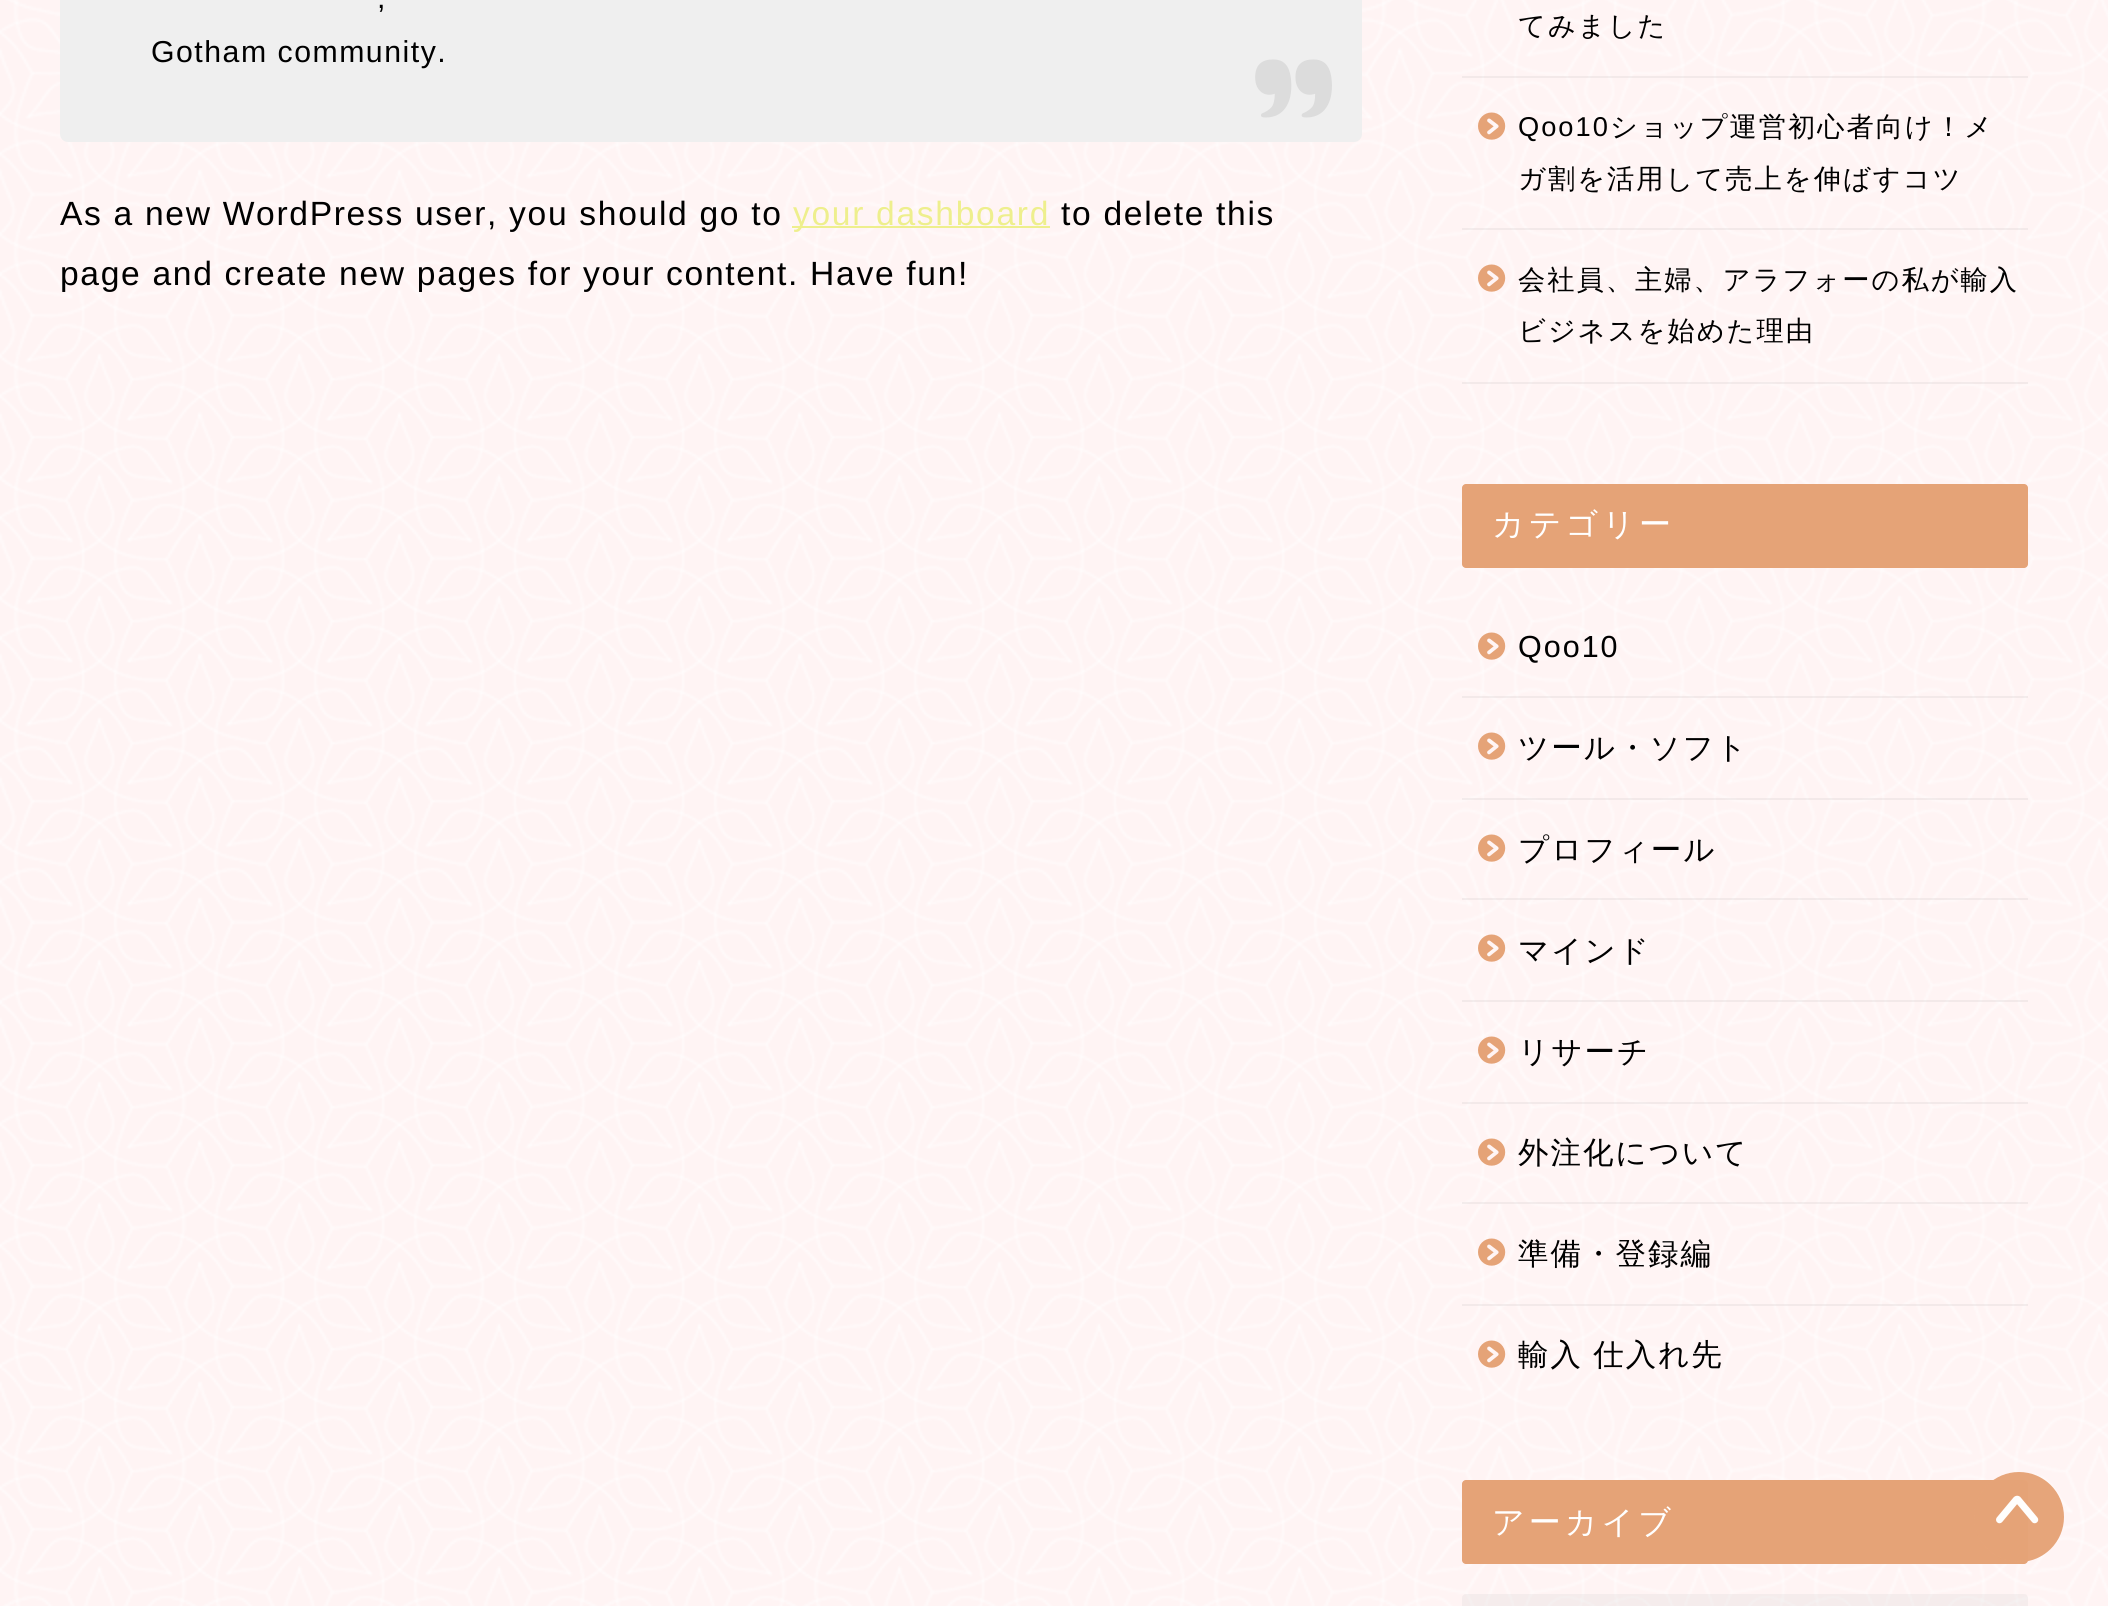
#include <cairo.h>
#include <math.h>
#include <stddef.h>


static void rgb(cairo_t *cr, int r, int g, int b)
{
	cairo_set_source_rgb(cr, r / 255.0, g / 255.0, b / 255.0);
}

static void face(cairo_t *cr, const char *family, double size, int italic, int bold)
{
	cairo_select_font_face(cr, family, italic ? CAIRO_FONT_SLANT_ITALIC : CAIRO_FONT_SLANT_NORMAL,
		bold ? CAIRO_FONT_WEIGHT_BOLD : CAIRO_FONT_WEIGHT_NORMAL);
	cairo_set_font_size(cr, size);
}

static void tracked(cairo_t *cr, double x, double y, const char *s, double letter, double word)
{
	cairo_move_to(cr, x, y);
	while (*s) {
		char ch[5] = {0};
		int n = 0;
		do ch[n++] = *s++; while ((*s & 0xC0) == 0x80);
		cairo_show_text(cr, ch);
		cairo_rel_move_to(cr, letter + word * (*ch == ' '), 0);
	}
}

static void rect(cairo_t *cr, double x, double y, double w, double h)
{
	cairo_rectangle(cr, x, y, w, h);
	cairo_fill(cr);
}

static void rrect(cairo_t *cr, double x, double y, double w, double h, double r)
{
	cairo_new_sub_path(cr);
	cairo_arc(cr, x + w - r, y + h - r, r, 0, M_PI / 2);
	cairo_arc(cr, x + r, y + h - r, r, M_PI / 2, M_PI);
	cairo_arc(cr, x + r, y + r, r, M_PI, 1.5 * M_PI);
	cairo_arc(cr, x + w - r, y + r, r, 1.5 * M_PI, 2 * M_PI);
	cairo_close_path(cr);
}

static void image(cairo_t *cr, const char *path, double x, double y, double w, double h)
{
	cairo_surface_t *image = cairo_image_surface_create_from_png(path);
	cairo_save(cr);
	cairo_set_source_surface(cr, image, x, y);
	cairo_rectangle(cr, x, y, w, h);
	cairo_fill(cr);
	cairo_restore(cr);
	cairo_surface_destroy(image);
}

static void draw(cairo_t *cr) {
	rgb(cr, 255, 244, 244);
	cairo_paint(cr);
	image(cr, "image0.png", 0, 0, 2108, 1606);
	rgb(cr, 239, 239, 239);
	rrect(cr, 60, -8, 1302, 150, 8);
	cairo_fill(cr);
	face(cr, "Liberation Sans", 30.25, 0, 0);
	rgb(cr, 0, 0, 0);
	tracked(cr, 377, 8, ",", 1.5, 0);
	tracked(cr, 151, 62, "Gotham community.", 1.5, 0);
	image(cr, "image1.png", 1255, 59, 77, 59);
	face(cr, "Liberation Sans", 33.6, 0, 0);
	tracked(cr, 60, 225, "As a new WordPress user, you should go to", 1.68, 0);
	rgb(cr, 238, 239, 141);
	rect(cr, 792, 226, 258, 2);
	tracked(cr, 793, 225, "your dashboard", 1.68, 0);
	rgb(cr, 0, 0, 0);
	tracked(cr, 1061, 225, "to delete this", 1.68, 0);
	tracked(cr, 60, 285, "page and create new pages for your content. Have fun!", 1.68, 0);
	cairo_set_source_rgba(cr, 0, 0, 0, 0.05);
	rect(cr, 1462, 76, 566, 2);
	face(cr, "WenQuanYi Zen Hei Medium", 27.25, 0, 0);
	rgb(cr, 0, 0, 0);
	tracked(cr, 1518, 35, "てみました", 2, 0);
	cairo_set_source_rgba(cr, 0, 0, 0, 0.05);
	rect(cr, 1462, 228, 566, 2);
	image(cr, "image2.png", 1478, 112, 28, 28);
	face(cr, "Liberation Sans", 27.25, 0, 0);
	rgb(cr, 0, 0, 0);
	tracked(cr, 1518, 136, "Qoo10", 2, 0);
	face(cr, "WenQuanYi Zen Hei Medium", 27.25, 0, 0);
	tracked(cr, 1610, 136, "ショップ運営初心者向け！メ", 2, 0);
	tracked(cr, 1518, 188, "ガ割を活用して売上を伸ばすコツ", 2, 0);
	cairo_set_source_rgba(cr, 0, 0, 0, 0.05);
	rect(cr, 1462, 382, 566, 2);
	image(cr, "image3.png", 1478, 264, 28, 28);
	rgb(cr, 0, 0, 0);
	tracked(cr, 1518, 289, "会社員、主婦、アラフォーの私が輸入", 2, 0);
	tracked(cr, 1518, 340, "ビジネスを始めた理由", 2, 0);
	rgb(cr, 229, 163, 119);
	rrect(cr, 1462, 484, 566, 84, 4);
	cairo_fill(cr);
	face(cr, "WenQuanYi Zen Hei Medium", 32, 0, 0);
	rgb(cr, 255, 255, 255);
	tracked(cr, 1492, 535, "カテゴリー", 4, 0);
	cairo_set_source_rgba(cr, 0, 0, 0, 0.05);
	rect(cr, 1462, 696, 566, 2);
	image(cr, "image4.png", 1478, 632, 28, 28);
	face(cr, "Liberation Sans", 30.5, 0, 0);
	rgb(cr, 0, 0, 0);
	tracked(cr, 1518, 657, "Qoo10", 2, 0);
	cairo_set_source_rgba(cr, 0, 0, 0, 0.05);
	rect(cr, 1462, 798, 566, 2);
	image(cr, "image5.png", 1478, 732, 28, 28);
	face(cr, "WenQuanYi Zen Hei Medium", 30.5, 0, 0);
	rgb(cr, 0, 0, 0);
	tracked(cr, 1518, 758, "ツール・ソフト", 2, 0);
	cairo_set_source_rgba(cr, 0, 0, 0, 0.05);
	rect(cr, 1462, 898, 566, 2);
	image(cr, "image6.png", 1478, 834, 28, 28);
	rgb(cr, 0, 0, 0);
	tracked(cr, 1518, 860, "プロフィール", 2, 0);
	cairo_set_source_rgba(cr, 0, 0, 0, 0.05);
	rect(cr, 1462, 1000, 566, 2);
	image(cr, "image7.png", 1478, 934, 28, 28);
	rgb(cr, 0, 0, 0);
	tracked(cr, 1518, 961, "マインド", 2, 0);
	cairo_set_source_rgba(cr, 0, 0, 0, 0.05);
	rect(cr, 1462, 1102, 566, 2);
	image(cr, "image8.png", 1478, 1036, 28, 28);
	rgb(cr, 0, 0, 0);
	tracked(cr, 1518, 1062, "リサーチ", 2, 0);
	cairo_set_source_rgba(cr, 0, 0, 0, 0.05);
	rect(cr, 1462, 1202, 566, 2);
	image(cr, "image9.png", 1478, 1138, 28, 28);
	rgb(cr, 0, 0, 0);
	tracked(cr, 1518, 1163, "外注化について", 2, 0);
	cairo_set_source_rgba(cr, 0, 0, 0, 0.05);
	rect(cr, 1462, 1304, 566, 2);
	image(cr, "image10.png", 1478, 1238, 28, 28);
	rgb(cr, 0, 0, 0);
	tracked(cr, 1518, 1264, "準備・登録編", 2, 0);
	image(cr, "image11.png", 1478, 1340, 28, 28);
	tracked(cr, 1518, 1365, "輸入 仕入れ先", 2, -1);
	rgb(cr, 229, 163, 119);
	rrect(cr, 1462, 1480, 566, 84, 4);
	cairo_fill(cr);
	face(cr, "WenQuanYi Zen Hei Medium", 32, 0, 0);
	rgb(cr, 255, 255, 255);
	tracked(cr, 1492, 1533, "アーカイブ", 4, 0);
	cairo_set_source_rgba(cr, 0.753, 0.753, 0.753, 0.15);
	rrect(cr, 1462, 1594, 566, 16, 4);
	cairo_fill(cr);
	cairo_set_source_rgba(cr, 0.898, 0.639, 0.467, 0.98);
	cairo_arc(cr, 2019, 1517, 45, 0, 2 * M_PI);
	cairo_fill(cr);
	image(cr, "image12.png", 1996, 1495, 43, 29);
}

int main(void) {
	cairo_surface_t *surface = cairo_image_surface_create(CAIRO_FORMAT_RGB24, 2108, 1606);
	cairo_t *cr = cairo_create(surface);
	cairo_font_options_t *options = cairo_font_options_create();
	cairo_font_options_set_hint_metrics(options, CAIRO_HINT_METRICS_OFF);
	cairo_font_options_set_hint_style(options, CAIRO_HINT_STYLE_NONE);
	cairo_set_font_options(cr, options);
	cairo_set_miter_limit(cr, 4);
	draw(cr);
	cairo_surface_write_to_png(surface, "render.png");
	cairo_font_options_destroy(options);
	cairo_destroy(cr);
	cairo_surface_destroy(surface);
	return 0;
}
